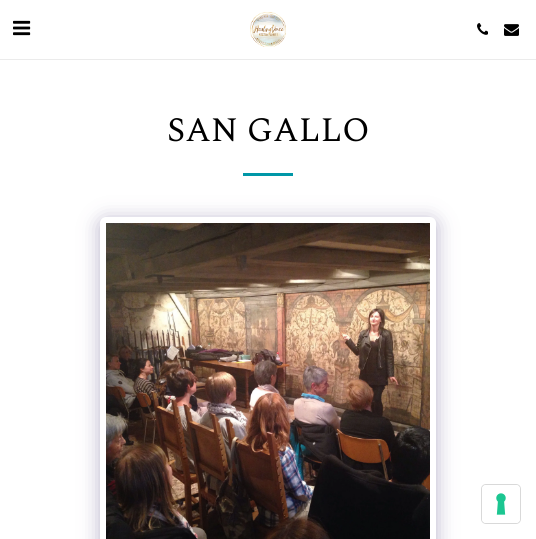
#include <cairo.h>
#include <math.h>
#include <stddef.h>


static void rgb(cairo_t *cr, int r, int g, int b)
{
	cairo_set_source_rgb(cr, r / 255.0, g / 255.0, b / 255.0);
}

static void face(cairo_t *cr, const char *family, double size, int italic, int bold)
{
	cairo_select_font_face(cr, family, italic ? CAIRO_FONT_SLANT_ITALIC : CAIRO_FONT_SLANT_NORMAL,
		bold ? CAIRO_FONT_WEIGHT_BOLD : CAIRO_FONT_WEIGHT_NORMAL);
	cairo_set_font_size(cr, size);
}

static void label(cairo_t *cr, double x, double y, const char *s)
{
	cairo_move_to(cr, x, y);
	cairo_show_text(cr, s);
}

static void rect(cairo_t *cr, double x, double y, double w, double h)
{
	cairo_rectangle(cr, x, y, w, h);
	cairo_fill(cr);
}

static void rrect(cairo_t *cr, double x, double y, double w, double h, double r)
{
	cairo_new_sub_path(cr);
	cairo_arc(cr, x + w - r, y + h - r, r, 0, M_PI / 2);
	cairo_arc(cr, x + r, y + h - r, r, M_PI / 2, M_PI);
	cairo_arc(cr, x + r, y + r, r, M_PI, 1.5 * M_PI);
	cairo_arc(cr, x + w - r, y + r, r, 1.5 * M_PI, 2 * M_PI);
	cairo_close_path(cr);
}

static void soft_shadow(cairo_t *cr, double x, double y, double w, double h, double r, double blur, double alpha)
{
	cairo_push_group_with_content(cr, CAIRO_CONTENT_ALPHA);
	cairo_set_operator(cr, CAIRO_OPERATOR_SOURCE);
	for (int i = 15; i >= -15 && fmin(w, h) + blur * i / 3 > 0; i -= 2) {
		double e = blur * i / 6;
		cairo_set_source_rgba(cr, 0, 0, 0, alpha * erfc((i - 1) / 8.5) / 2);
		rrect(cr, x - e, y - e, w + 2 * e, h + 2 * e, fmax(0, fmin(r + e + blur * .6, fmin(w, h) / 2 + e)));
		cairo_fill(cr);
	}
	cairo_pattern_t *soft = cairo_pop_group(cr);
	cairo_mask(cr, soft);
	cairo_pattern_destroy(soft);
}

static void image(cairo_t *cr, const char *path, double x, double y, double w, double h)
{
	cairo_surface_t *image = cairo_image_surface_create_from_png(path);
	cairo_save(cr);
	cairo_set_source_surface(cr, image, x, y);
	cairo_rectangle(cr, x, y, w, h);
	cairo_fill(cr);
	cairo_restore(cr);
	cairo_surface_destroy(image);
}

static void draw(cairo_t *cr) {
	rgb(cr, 255, 255, 255);
	cairo_paint(cr);
	rgb(cr, 235, 235, 235);
	rect(cr, 0, 59, 536, 1);
	image(cr, "image0.png", 13, 20, 18, 16);
	image(cr, "image1.png", 250, 12, 36, 35);
	image(cr, "image2.png", 477, 23, 11, 12);
	image(cr, "image3.png", 504, 24, 15, 12);
	face(cr, "Spectral", 34.25, 0, 0);
	rgb(cr, 0, 0, 0);
	label(cr, 167, 141, "SAN GALLO");
	rgb(cr, 0, 151, 167);
	rect(cr, 243, 173, 50, 3);
	rgb(cr, 77, 63, 122);
	soft_shadow(cr, 100, 220, 336, 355, 6, 10, 0.4);
	rgb(cr, 255, 255, 255);
	rrect(cr, 100, 217, 336, 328, 6);
	cairo_fill(cr);
	image(cr, "image4.png", 106, 223, 324, 316);
	rrect(cr, 481.5, 484.5, 39, 39, 4.5);
	rgb(cr, 217, 217, 217);
	cairo_set_line_width(cr, 1);
	cairo_stroke(cr);
	rgb(cr, 255, 255, 255);
	rrect(cr, 482, 485, 38, 38, 4);
	cairo_fill(cr);
	image(cr, "image5.png", 496, 493, 10, 22);
}

int main(void) {
	cairo_surface_t *surface = cairo_image_surface_create(CAIRO_FORMAT_RGB24, 536, 539);
	cairo_t *cr = cairo_create(surface);
	cairo_font_options_t *options = cairo_font_options_create();
	cairo_font_options_set_hint_metrics(options, CAIRO_HINT_METRICS_OFF);
	cairo_font_options_set_hint_style(options, CAIRO_HINT_STYLE_NONE);
	cairo_set_font_options(cr, options);
	cairo_set_miter_limit(cr, 4);
	draw(cr);
	cairo_surface_write_to_png(surface, "render.png");
	cairo_font_options_destroy(options);
	cairo_destroy(cr);
	cairo_surface_destroy(surface);
	return 0;
}
